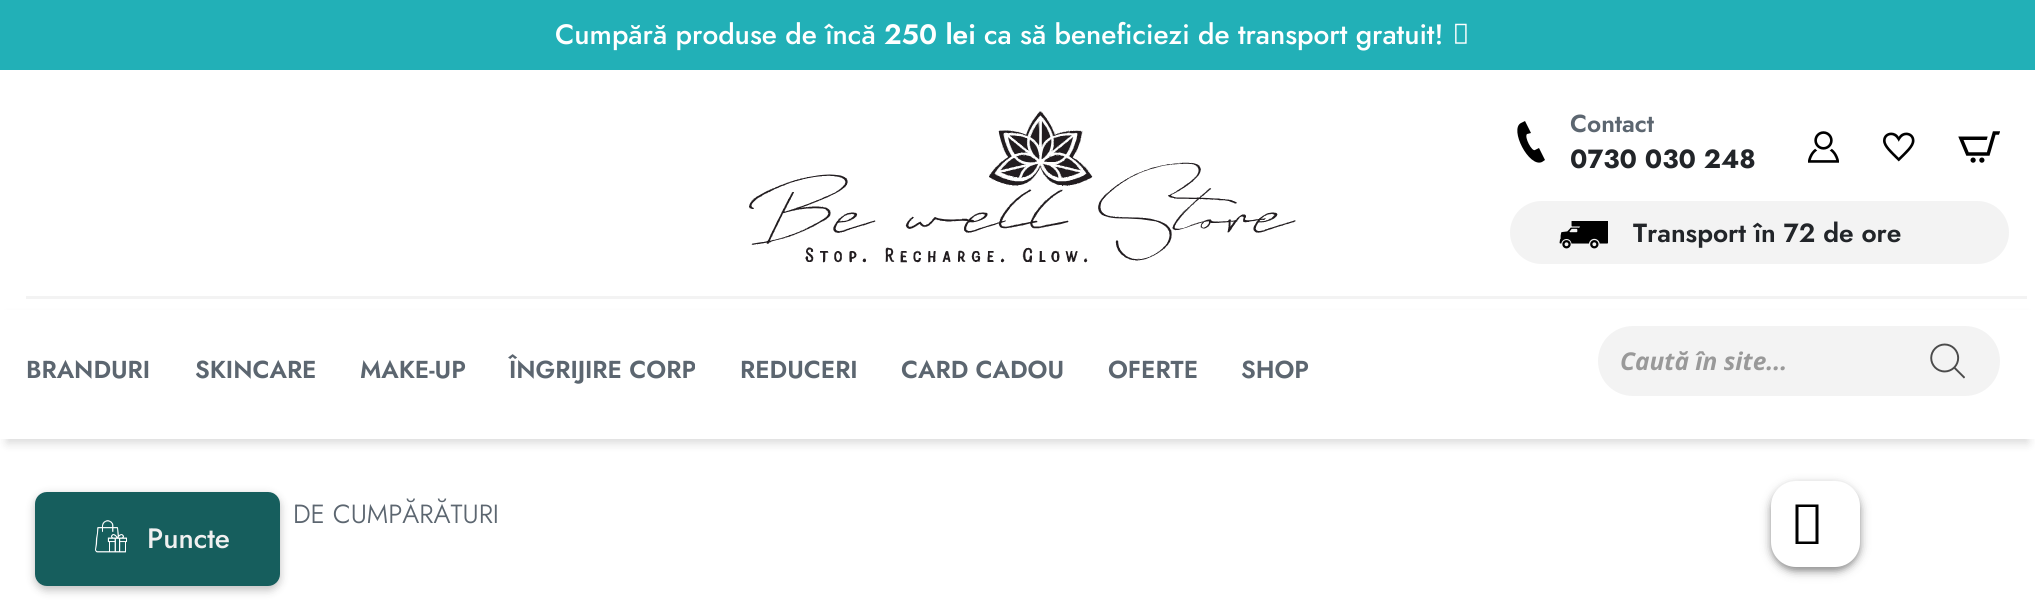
#include <cairo.h>
#include <math.h>
#include <stddef.h>


static void rgb(cairo_t *cr, int r, int g, int b)
{
	cairo_set_source_rgb(cr, r / 255.0, g / 255.0, b / 255.0);
}

static void face(cairo_t *cr, const char *family, double size, int italic, int bold)
{
	cairo_select_font_face(cr, family, italic ? CAIRO_FONT_SLANT_ITALIC : CAIRO_FONT_SLANT_NORMAL,
		bold ? CAIRO_FONT_WEIGHT_BOLD : CAIRO_FONT_WEIGHT_NORMAL);
	cairo_set_font_size(cr, size);
}

static void label(cairo_t *cr, double x, double y, const char *s)
{
	cairo_move_to(cr, x, y);
	cairo_show_text(cr, s);
}

static void rect(cairo_t *cr, double x, double y, double w, double h)
{
	cairo_rectangle(cr, x, y, w, h);
	cairo_fill(cr);
}

static void rrect(cairo_t *cr, double x, double y, double w, double h, double r)
{
	cairo_new_sub_path(cr);
	cairo_arc(cr, x + w - r, y + h - r, r, 0, M_PI / 2);
	cairo_arc(cr, x + r, y + h - r, r, M_PI / 2, M_PI);
	cairo_arc(cr, x + r, y + r, r, M_PI, 1.5 * M_PI);
	cairo_arc(cr, x + w - r, y + r, r, 1.5 * M_PI, 2 * M_PI);
	cairo_close_path(cr);
}

static void soft_shadow(cairo_t *cr, double x, double y, double w, double h, double r, double blur, double alpha)
{
	cairo_push_group_with_content(cr, CAIRO_CONTENT_ALPHA);
	cairo_set_operator(cr, CAIRO_OPERATOR_SOURCE);
	for (int i = 15; i >= -15 && fmin(w, h) + blur * i / 3 > 0; i -= 2) {
		double e = blur * i / 6;
		cairo_set_source_rgba(cr, 0, 0, 0, alpha * erfc((i - 1) / 8.5) / 2);
		rrect(cr, x - e, y - e, w + 2 * e, h + 2 * e, fmax(0, fmin(r + e + blur * .6, fmin(w, h) / 2 + e)));
		cairo_fill(cr);
	}
	cairo_pattern_t *soft = cairo_pop_group(cr);
	cairo_mask(cr, soft);
	cairo_pattern_destroy(soft);
}

static void image(cairo_t *cr, const char *path, double x, double y, double w, double h)
{
	cairo_surface_t *image = cairo_image_surface_create_from_png(path);
	cairo_save(cr);
	cairo_set_source_surface(cr, image, x, y);
	cairo_rectangle(cr, x, y, w, h);
	cairo_fill(cr);
	cairo_restore(cr);
	cairo_surface_destroy(image);
}

static void draw(cairo_t *cr) {
	rgb(cr, 255, 255, 255);
	cairo_paint(cr);
	rgb(cr, 34, 176, 183);
	rect(cr, 0, 0, 2035, 70);
	face(cr, "Jost Medium", 28, 0, 0);
	rgb(cr, 255, 255, 255);
	label(cr, 555, 44, "Cumpără produse de încă");
	face(cr, "Jost SemiBold", 28, 0, 0);
	label(cr, 884, 44, "250 lei");
	face(cr, "Jost Medium", 28, 0, 0);
	label(cr, 984, 44, "ca să beneficiezi de transport gratuit!");
	image(cr, "image0.png", 1455, 23, 12, 21);
	image(cr, "image1.png", 749, 111, 547, 152);
	face(cr, "Jost SemiBold", 24.5, 0, 0);
	rgb(cr, 92, 102, 112);
	label(cr, 1570, 132, "Contact");
	rgb(cr, 0, 0, 0);
	cairo_new_path(cr);
	cairo_move_to(cr, 1545, 160);
	cairo_line_to(cr, 1539, 148);
	cairo_line_to(cr, 1535, 150);
	cairo_curve_to(cr, 1532, 152, 1524, 137, 1527, 134);
	cairo_line_to(cr, 1531, 133);
	cairo_line_to(cr, 1525, 121);
	cairo_line_to(cr, 1521, 123);
	cairo_curve_to(cr, 1509, 129, 1529, 168, 1542, 162);
	cairo_close_path(cr);
	cairo_fill(cr);
	face(cr, "Jost", 26.25, 0, 1);
	rgb(cr, 34, 37, 41);
	label(cr, 1570, 168, "0730 030 248");
	image(cr, "image2.png", 1808, 131, 31, 32);
	image(cr, "image3.png", 1883, 132, 32, 30);
	image(cr, "image4.png", 1958, 131, 42, 32);
	rgb(cr, 243, 243, 243);
	rrect(cr, 1510, 201, 499, 63, 31.5);
	cairo_fill(cr);
	image(cr, "image5.png", 1559, 221, 49, 28);
	face(cr, "Jost SemiBold", 26.25, 0, 0);
	rgb(cr, 34, 37, 41);
	label(cr, 1633, 242, "Transport în 72 de ore");
	rgb(cr, 243, 243, 243);
	rect(cr, 26, 296, 2001, 3);
	rgb(cr, 0, 0, 0);
	soft_shadow(cr, 7, 317, 2021, 126, 0, 5, 0.15);
	rgb(cr, 255, 255, 255);
	rect(cr, 0, 310, 2035, 129);
	face(cr, "Jost SemiBold", 24.5, 0, 0);
	rgb(cr, 92, 102, 112);
	label(cr, 26, 378, "BRANDURI");
	label(cr, 195, 378, "SKINCARE");
	label(cr, 360, 378, "MAKE-UP");
	label(cr, 509, 378, "ÎNGRIJIRE CORP");
	label(cr, 740, 378, "REDUCERI");
	label(cr, 901, 378, "CARD CADOU");
	label(cr, 1108, 378, "OFERTE");
	label(cr, 1241, 378, "SHOP");
	rgb(cr, 243, 243, 243);
	cairo_new_path(cr);
	cairo_move_to(cr, 1633, 327);
	cairo_line_to(cr, 1894, 327);
	cairo_line_to(cr, 1894, 395);
	cairo_line_to(cr, 1633, 395);
	cairo_curve_to(cr, 1614, 395, 1599, 380, 1599, 361);
	cairo_curve_to(cr, 1599, 342, 1614, 327, 1633, 327);
	cairo_close_path(cr);
	cairo_fill_preserve(cr);
	cairo_stroke(cr);
	face(cr, "Open Sans", 24.5, 1, 1);
	rgb(cr, 153, 153, 153);
	label(cr, 1620, 370, "Caută în site...");
	rgb(cr, 243, 243, 243);
	cairo_new_path(cr);
	cairo_move_to(cr, 1896, 327);
	cairo_line_to(cr, 1965, 327);
	cairo_curve_to(cr, 1984, 327, 1999, 342, 1999, 361);
	cairo_curve_to(cr, 1999, 380, 1984, 395, 1965, 395);
	cairo_line_to(cr, 1896, 395);
	cairo_close_path(cr);
	cairo_fill_preserve(cr);
	cairo_stroke(cr);
	image(cr, "image6.png", 1930, 343, 35, 36);
	face(cr, "Jost Light", 26.25, 0, 0);
	rgb(cr, 92, 102, 112);
	label(cr, 293, 523, "DE CUMPĂRĂTURI");
	rgb(cr, 0, 0, 0);
	soft_shadow(cr, 35, 495, 245, 95, 12, 4.5, 0.25);
	rgb(cr, 22, 94, 93);
	rrect(cr, 35, 492, 245, 94, 12);
	cairo_fill(cr);
	image(cr, "image7.png", 95, 520, 32, 33);
	face(cr, "Jost Medium", 28, 0, 0);
	rgb(cr, 240, 240, 240);
	label(cr, 147, 548, "Puncte");
	rgb(cr, 0, 0, 0);
	soft_shadow(cr, 1771, 485, 89, 86, 25, 2, 0.1);
	soft_shadow(cr, 1771, 485, 89, 86, 25, 5, 0.4);
	rgb(cr, 255, 255, 255);
	rrect(cr, 1771, 481, 89, 86, 25);
	cairo_fill(cr);
	rgb(cr, 0, 0, 0);
	cairo_new_path(cr);
	cairo_move_to(cr, 1795.5, 544);
	cairo_line_to(cr, 1795.5, 504.5);
	cairo_line_to(cr, 1818.5, 504.5);
	cairo_line_to(cr, 1818.5, 544);
	cairo_close_path(cr);
	cairo_move_to(cr, 1798.5, 541.5);
	cairo_line_to(cr, 1815.5, 541.5);
	cairo_line_to(cr, 1815.5, 507);
	cairo_line_to(cr, 1798.5, 507);
	cairo_close_path(cr);
	cairo_fill(cr);
}

int main(void) {
	cairo_surface_t *surface = cairo_image_surface_create(CAIRO_FORMAT_RGB24, 2035, 610);
	cairo_t *cr = cairo_create(surface);
	cairo_font_options_t *options = cairo_font_options_create();
	cairo_font_options_set_hint_metrics(options, CAIRO_HINT_METRICS_OFF);
	cairo_font_options_set_hint_style(options, CAIRO_HINT_STYLE_NONE);
	cairo_set_font_options(cr, options);
	cairo_set_miter_limit(cr, 4);
	draw(cr);
	cairo_surface_write_to_png(surface, "render.png");
	cairo_font_options_destroy(options);
	cairo_destroy(cr);
	cairo_surface_destroy(surface);
	return 0;
}
